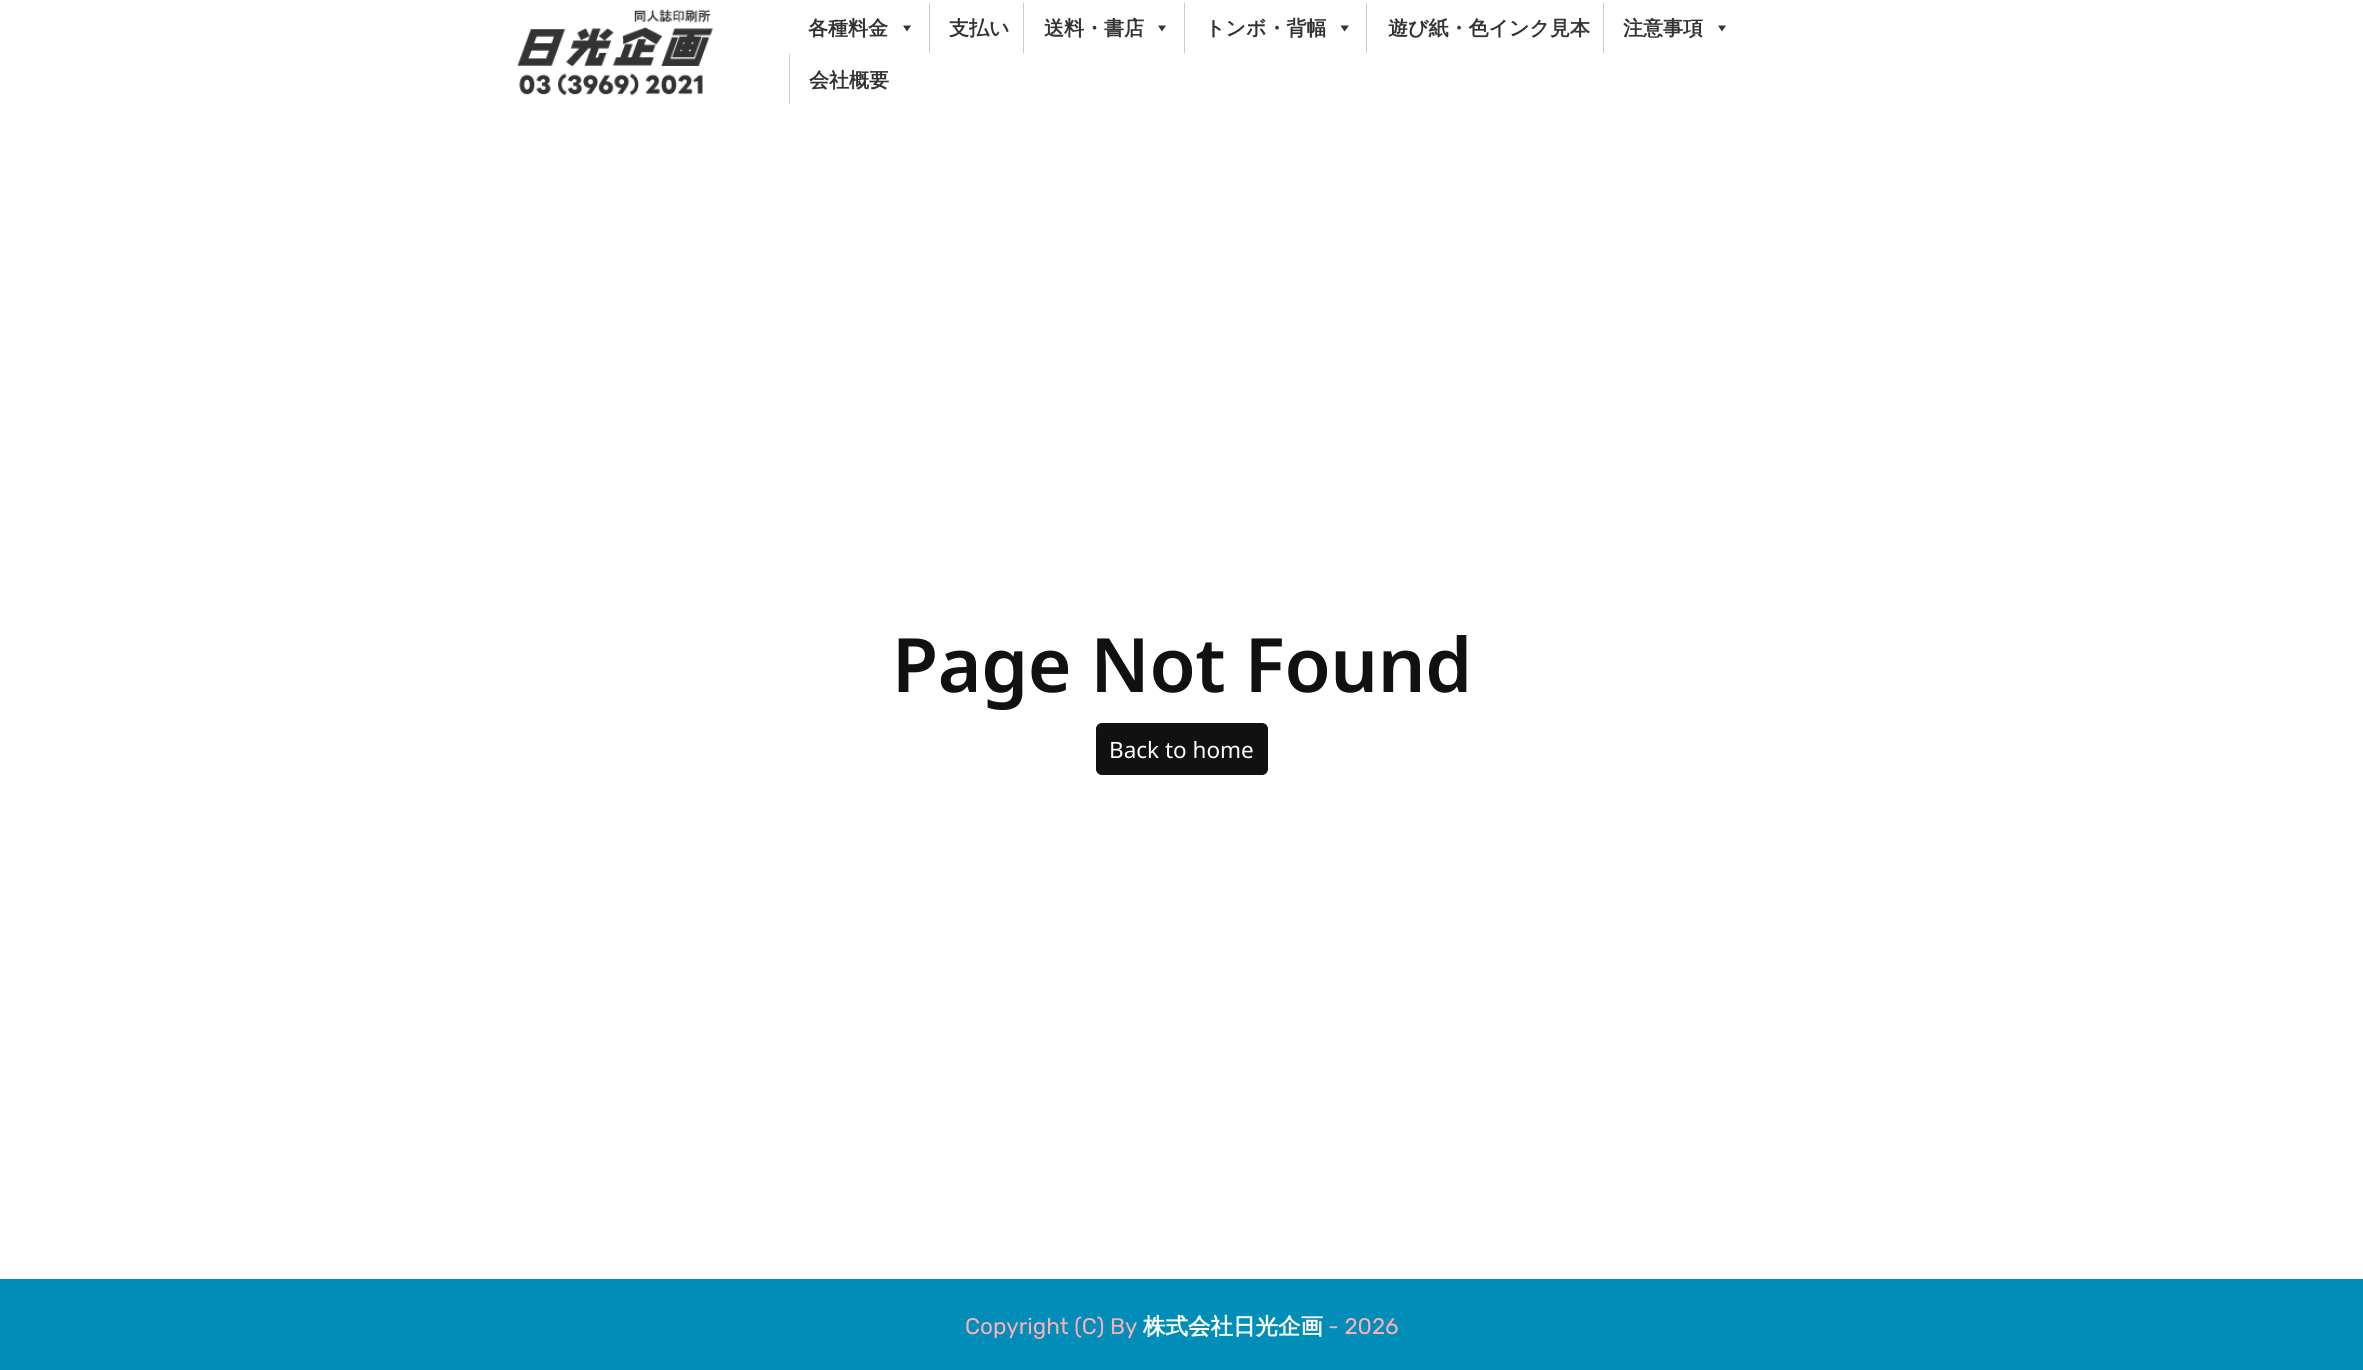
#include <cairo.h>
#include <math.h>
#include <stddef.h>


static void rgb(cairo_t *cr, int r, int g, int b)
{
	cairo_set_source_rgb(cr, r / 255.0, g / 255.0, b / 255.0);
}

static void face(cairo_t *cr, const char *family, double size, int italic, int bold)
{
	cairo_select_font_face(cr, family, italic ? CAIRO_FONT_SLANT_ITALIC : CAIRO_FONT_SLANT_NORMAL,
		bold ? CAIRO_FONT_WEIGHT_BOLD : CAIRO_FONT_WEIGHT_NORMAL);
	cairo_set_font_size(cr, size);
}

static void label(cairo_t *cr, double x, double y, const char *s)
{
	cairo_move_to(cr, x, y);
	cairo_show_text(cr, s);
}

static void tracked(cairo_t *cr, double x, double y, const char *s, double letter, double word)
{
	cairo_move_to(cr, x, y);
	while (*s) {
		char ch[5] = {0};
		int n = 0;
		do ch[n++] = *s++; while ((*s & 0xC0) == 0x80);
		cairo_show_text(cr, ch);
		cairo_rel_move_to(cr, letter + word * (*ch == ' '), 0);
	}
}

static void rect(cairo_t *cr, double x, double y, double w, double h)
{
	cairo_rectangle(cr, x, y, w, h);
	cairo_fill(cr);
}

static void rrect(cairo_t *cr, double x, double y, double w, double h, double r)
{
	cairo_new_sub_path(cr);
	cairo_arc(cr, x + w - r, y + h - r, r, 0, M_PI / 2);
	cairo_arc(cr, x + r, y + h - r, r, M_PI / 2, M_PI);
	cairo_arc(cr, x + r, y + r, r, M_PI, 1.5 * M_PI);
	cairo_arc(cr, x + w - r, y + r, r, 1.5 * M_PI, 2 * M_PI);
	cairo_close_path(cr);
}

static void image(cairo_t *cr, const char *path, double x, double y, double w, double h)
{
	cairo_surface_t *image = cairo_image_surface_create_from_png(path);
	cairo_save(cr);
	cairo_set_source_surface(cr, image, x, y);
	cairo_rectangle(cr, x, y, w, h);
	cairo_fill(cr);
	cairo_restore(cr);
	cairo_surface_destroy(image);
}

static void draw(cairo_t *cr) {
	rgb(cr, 255, 255, 255);
	cairo_paint(cr);
	image(cr, "image0.png", 517, 9, 196, 87);
	face(cr, "WenQuanYi Zen Hei", 20, 0, 1);
	rgb(cr, 51, 51, 51);
	label(cr, 808, 35, "各種料金");
	cairo_new_path(cr);
	cairo_move_to(cr, 911, 25.5);
	cairo_line_to(cr, 907, 31.5);
	cairo_line_to(cr, 903, 25.5);
	cairo_close_path(cr);
	cairo_fill(cr);
	rgb(cr, 204, 204, 204);
	rect(cr, 929, 3, 1, 50);
	rgb(cr, 51, 51, 51);
	label(cr, 949, 35, "支払い");
	rgb(cr, 204, 204, 204);
	rect(cr, 1023, 3, 1, 50);
	rgb(cr, 51, 51, 51);
	label(cr, 1044, 35, "送料・書店");
	cairo_new_path(cr);
	cairo_move_to(cr, 1166, 25.5);
	cairo_line_to(cr, 1162, 31.5);
	cairo_line_to(cr, 1158, 25.5);
	cairo_close_path(cr);
	cairo_fill(cr);
	rgb(cr, 204, 204, 204);
	rect(cr, 1184, 3, 1, 50);
	rgb(cr, 51, 51, 51);
	label(cr, 1205, 35, "トンボ・背幅");
	cairo_new_path(cr);
	cairo_move_to(cr, 1349, 25.5);
	cairo_line_to(cr, 1344.5, 31.5);
	cairo_line_to(cr, 1340.5, 25.5);
	cairo_close_path(cr);
	cairo_fill(cr);
	rgb(cr, 204, 204, 204);
	rect(cr, 1366, 3, 1, 50);
	rgb(cr, 51, 51, 51);
	label(cr, 1388, 35, "遊び紙・色インク見本");
	rgb(cr, 204, 204, 204);
	rect(cr, 1603, 3, 1, 50);
	rgb(cr, 51, 51, 51);
	label(cr, 1623, 35, "注意事項");
	cairo_new_path(cr);
	cairo_move_to(cr, 1726, 25.5);
	cairo_line_to(cr, 1722, 31.5);
	cairo_line_to(cr, 1718, 25.5);
	cairo_close_path(cr);
	cairo_fill(cr);
	rgb(cr, 204, 204, 204);
	rect(cr, 789, 54, 1, 50);
	rgb(cr, 51, 51, 51);
	label(cr, 809, 87, "会社概要");
	face(cr, "Noto Sans SemiBold", 75, 0, 0);
	rgb(cr, 17, 17, 17);
	tracked(cr, 892, 692, "Page Not Found", -0.4, 0);
	rrect(cr, 1096.5, 723.5, 171, 51, 5.5);
	cairo_fill_preserve(cr);
	cairo_set_line_width(cr, 1);
	cairo_stroke(cr);
	face(cr, "Noto Sans", 22.5, 0, 0);
	rgb(cr, 255, 255, 255);
	label(cr, 1109, 758, "Back to home");
	rgb(cr, 0, 141, 183);
	rect(cr, 0, 1279, 2363, 91);
	face(cr, "Rubik", 22.5, 0, 0);
	rgb(cr, 249, 175, 186);
	label(cr, 965, 1334, "Copyright (C) By");
	face(cr, "WenQuanYi Zen Hei", 22.5, 0, 1);
	rgb(cr, 255, 255, 255);
	label(cr, 1143, 1334, "株式会社日光企画");
	face(cr, "Rubik", 22.5, 0, 0);
	rgb(cr, 249, 175, 186);
	label(cr, 1328, 1334, "- 2026");
}

int main(void) {
	cairo_surface_t *surface = cairo_image_surface_create(CAIRO_FORMAT_RGB24, 2363, 1370);
	cairo_t *cr = cairo_create(surface);
	cairo_font_options_t *options = cairo_font_options_create();
	cairo_font_options_set_hint_metrics(options, CAIRO_HINT_METRICS_OFF);
	cairo_font_options_set_hint_style(options, CAIRO_HINT_STYLE_NONE);
	cairo_set_font_options(cr, options);
	cairo_set_miter_limit(cr, 4);
	draw(cr);
	cairo_surface_write_to_png(surface, "render.png");
	cairo_font_options_destroy(options);
	cairo_destroy(cr);
	cairo_surface_destroy(surface);
	return 0;
}
